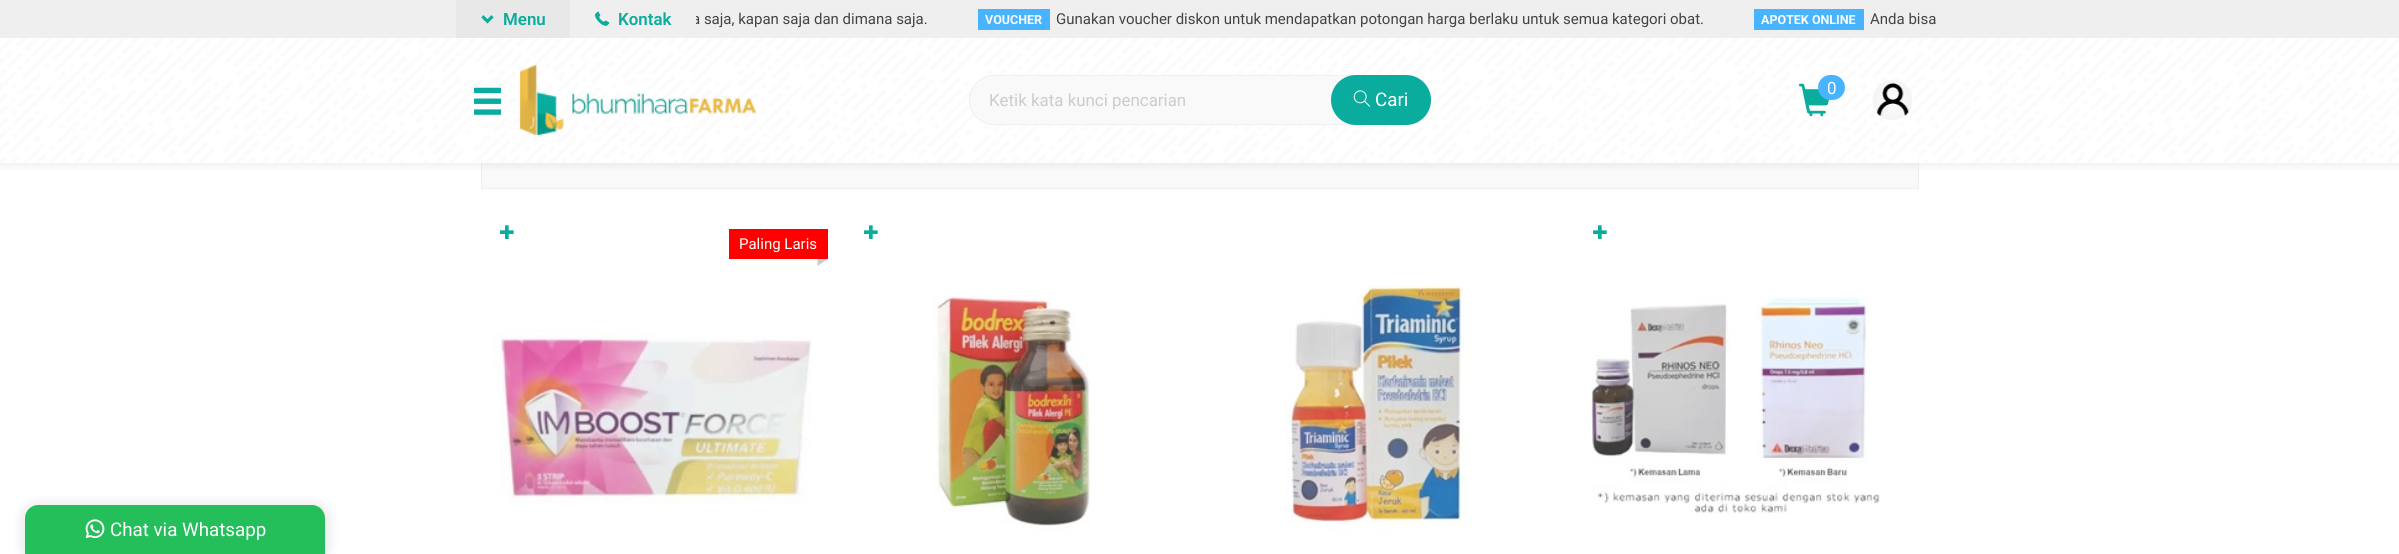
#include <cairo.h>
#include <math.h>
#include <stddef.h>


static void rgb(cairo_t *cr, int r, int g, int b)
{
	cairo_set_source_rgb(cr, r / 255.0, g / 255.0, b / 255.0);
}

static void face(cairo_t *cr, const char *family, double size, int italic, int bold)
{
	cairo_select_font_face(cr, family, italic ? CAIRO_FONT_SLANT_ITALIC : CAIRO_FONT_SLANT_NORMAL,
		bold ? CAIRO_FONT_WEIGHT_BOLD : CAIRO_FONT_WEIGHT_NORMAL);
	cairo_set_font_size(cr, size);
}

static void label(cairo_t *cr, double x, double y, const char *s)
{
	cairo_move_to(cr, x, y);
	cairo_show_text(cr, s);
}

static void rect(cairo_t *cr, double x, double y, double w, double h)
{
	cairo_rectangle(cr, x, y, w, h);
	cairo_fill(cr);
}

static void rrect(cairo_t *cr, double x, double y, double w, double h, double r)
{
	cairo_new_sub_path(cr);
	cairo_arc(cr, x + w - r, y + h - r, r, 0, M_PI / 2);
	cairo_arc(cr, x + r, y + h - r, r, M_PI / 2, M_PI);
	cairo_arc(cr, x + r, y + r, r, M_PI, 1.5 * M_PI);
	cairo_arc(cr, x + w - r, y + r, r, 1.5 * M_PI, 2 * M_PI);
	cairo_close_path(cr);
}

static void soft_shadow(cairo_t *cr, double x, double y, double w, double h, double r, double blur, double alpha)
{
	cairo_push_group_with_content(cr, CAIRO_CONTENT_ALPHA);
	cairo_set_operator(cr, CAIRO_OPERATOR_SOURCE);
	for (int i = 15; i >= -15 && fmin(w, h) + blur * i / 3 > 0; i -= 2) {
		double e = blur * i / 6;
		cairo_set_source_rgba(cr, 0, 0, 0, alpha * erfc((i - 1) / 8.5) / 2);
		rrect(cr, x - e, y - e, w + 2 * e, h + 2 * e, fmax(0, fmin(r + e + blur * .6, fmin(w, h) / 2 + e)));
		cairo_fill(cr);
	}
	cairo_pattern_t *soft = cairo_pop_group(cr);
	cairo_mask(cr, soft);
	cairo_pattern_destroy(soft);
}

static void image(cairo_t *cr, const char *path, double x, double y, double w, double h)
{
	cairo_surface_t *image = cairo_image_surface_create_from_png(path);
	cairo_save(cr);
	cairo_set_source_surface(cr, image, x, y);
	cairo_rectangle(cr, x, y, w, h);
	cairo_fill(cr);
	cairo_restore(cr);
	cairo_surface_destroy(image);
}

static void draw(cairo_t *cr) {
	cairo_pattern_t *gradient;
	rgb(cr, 255, 255, 255);
	cairo_paint(cr);
	gradient = cairo_pattern_create_linear(1200, 49, 1200, 188);
	cairo_pattern_add_color_stop_rgba(gradient, 0, 1, 1, 1, 1);
	cairo_pattern_add_color_stop_rgba(gradient, 1, 0.976, 0.976, 0.976, 1);
	cairo_set_source(cr, gradient);
	cairo_pattern_destroy(gradient);
	rect(cr, 482, 163, 1436, 25);
	cairo_rectangle(cr, 481.5, 48.5, 1437, 140);
	rgb(cr, 239, 239, 239);
	cairo_set_line_width(cr, 1);
	cairo_stroke(cr);
	rgb(cr, 0, 0, 0);
	soft_shadow(cr, 0, 3, 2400, 162, 0, 5, 0.08);
	rgb(cr, 239, 239, 239);
	rect(cr, 0, 0, 2399, 38);
	face(cr, "Roboto", 15, 0, 0);
	rgb(cr, 68, 68, 68);
	label(cr, 692, 24, "a saja, kapan saja dan dimana saja.");
	rgb(cr, 239, 239, 239);
	rect(cr, 692, 15, 4, 10);
	rgb(cr, 232, 232, 232);
	rect(cr, 456, 0, 114, 38);
	image(cr, "image0.png", 481, 15, 13, 9);
	face(cr, "Roboto SemiBold", 16.9, 0, 0);
	rgb(cr, 10, 172, 157);
	label(cr, 503, 25, "Menu");
	image(cr, "image1.png", 595, 11, 15, 15);
	label(cr, 618, 25, "Kontak");
	rgb(cr, 72, 179, 255);
	rect(cr, 978, 9, 72, 21);
	face(cr, "Roboto", 12.5, 0, 1);
	rgb(cr, 255, 255, 255);
	label(cr, 985, 24, "VOUCHER");
	face(cr, "Roboto", 15, 0, 0);
	rgb(cr, 68, 68, 68);
	label(cr, 1056, 24, "Gunakan voucher diskon untuk mendapatkan potongan harga berlaku untuk semua kategori obat.");
	rgb(cr, 72, 179, 255);
	rect(cr, 1754, 9, 110, 21);
	face(cr, "Roboto", 12.5, 0, 1);
	rgb(cr, 255, 255, 255);
	label(cr, 1761, 24, "APOTEK ONLINE");
	face(cr, "Roboto", 15, 0, 0);
	rgb(cr, 68, 68, 68);
	label(cr, 1870, 24, "Anda bisa");
	image(cr, "image2.png", 0, 38, 2399, 125);
	image(cr, "image3.png", 473, 87, 29, 28);
	image(cr, "image4.png", 519, 64, 238, 72);
	image(cr, "image5.png", 1798, 83, 31, 34);
	rgb(cr, 72, 179, 255);
	rrect(cr, 1818, 75, 27, 25, 12.5);
	cairo_fill(cr);
	face(cr, "Roboto", 16.9, 0, 0);
	rgb(cr, 255, 255, 255);
	label(cr, 1827, 94, "0");
	cairo_new_path(cr);
	cairo_arc(cr, 1893, 100, 20, 0, 2 * M_PI);
	cairo_fill(cr);
	image(cr, "image6.png", 1872, 80, 40, 40);
	rgb(cr, 249, 249, 249);
	rrect(cr, 969.5, 75.5, 461, 49, 24.5);
	cairo_fill_preserve(cr);
	rgb(cr, 239, 239, 239);
	cairo_stroke(cr);
	rgb(cr, 204, 204, 204);
	label(cr, 989, 106, "Ketik kata kunci pencarian");
	rgb(cr, 10, 172, 157);
	rrect(cr, 1331, 75, 100, 50, 25);
	cairo_fill(cr);
	image(cr, "image7.png", 1353, 90, 18, 17);
	face(cr, "Roboto", 18.75, 0, 0);
	rgb(cr, 255, 255, 255);
	label(cr, 1375, 106, "Cari");
	face(cr, "DejaVu Sans", 18.75, 0, 0);
	rgb(cr, 10, 172, 157);
	label(cr, 499, 239, "✚");
	rgb(cr, 255, 0, 0);
	rect(cr, 729, 229, 99, 30);
	face(cr, "Roboto", 15, 0, 0);
	rgb(cr, 255, 255, 255);
	label(cr, 739, 249, "Paling Laris");
	rgb(cr, 204, 204, 204);
	cairo_new_path(cr);
	cairo_move_to(cr, 817.5, 266);
	cairo_line_to(cr, 817.5, 259);
	cairo_line_to(cr, 827.5, 259);
	cairo_close_path(cr);
	cairo_fill(cr);
	image(cr, "image8.png", 493, 329, 319, 176);
	face(cr, "DejaVu Sans", 18.75, 0, 0);
	rgb(cr, 10, 172, 157);
	label(cr, 863, 239, "✚");
	image(cr, "image9.png", 932, 296, 159, 237);
	label(cr, 1592, 239, "✚");
	image(cr, "image10.png", 1591, 296, 289, 218);
	image(cr, "image11.png", 1286, 283, 183, 250);
	rgb(cr, 51, 51, 51);
	soft_shadow(cr, 18, 500, 315, 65, 20, 4, 0.07);
	rgb(cr, 36, 190, 91);
	cairo_new_path(cr);
	cairo_move_to(cr, 38, 505);
	cairo_line_to(cr, 312, 505);
	cairo_curve_to(cr, 319, 505, 325, 511, 325, 518);
	cairo_line_to(cr, 325, 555);
	cairo_line_to(cr, 25, 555);
	cairo_line_to(cr, 25, 518);
	cairo_curve_to(cr, 25, 511, 31, 505, 38, 505);
	cairo_close_path(cr);
	cairo_fill(cr);
	image(cr, "image12.png", 85, 519, 20, 20);
	face(cr, "Roboto", 18.75, 0, 0);
	rgb(cr, 255, 255, 255);
	label(cr, 110, 536, "Chat via Whatsapp");
}

int main(void) {
	cairo_surface_t *surface = cairo_image_surface_create(CAIRO_FORMAT_RGB24, 2399, 554);
	cairo_t *cr = cairo_create(surface);
	cairo_font_options_t *options = cairo_font_options_create();
	cairo_font_options_set_hint_metrics(options, CAIRO_HINT_METRICS_OFF);
	cairo_font_options_set_hint_style(options, CAIRO_HINT_STYLE_NONE);
	cairo_set_font_options(cr, options);
	cairo_set_miter_limit(cr, 4);
	draw(cr);
	cairo_surface_write_to_png(surface, "render.png");
	cairo_font_options_destroy(options);
	cairo_destroy(cr);
	cairo_surface_destroy(surface);
	return 0;
}
